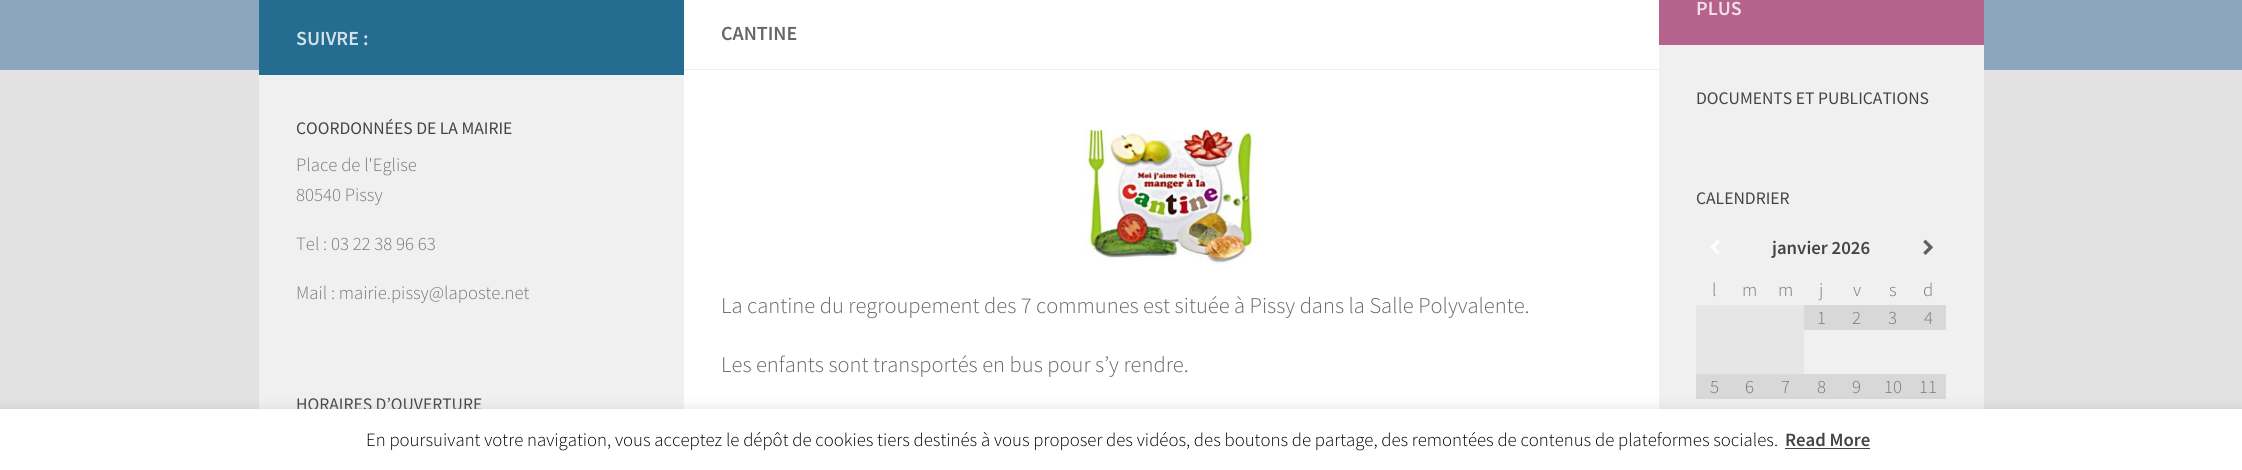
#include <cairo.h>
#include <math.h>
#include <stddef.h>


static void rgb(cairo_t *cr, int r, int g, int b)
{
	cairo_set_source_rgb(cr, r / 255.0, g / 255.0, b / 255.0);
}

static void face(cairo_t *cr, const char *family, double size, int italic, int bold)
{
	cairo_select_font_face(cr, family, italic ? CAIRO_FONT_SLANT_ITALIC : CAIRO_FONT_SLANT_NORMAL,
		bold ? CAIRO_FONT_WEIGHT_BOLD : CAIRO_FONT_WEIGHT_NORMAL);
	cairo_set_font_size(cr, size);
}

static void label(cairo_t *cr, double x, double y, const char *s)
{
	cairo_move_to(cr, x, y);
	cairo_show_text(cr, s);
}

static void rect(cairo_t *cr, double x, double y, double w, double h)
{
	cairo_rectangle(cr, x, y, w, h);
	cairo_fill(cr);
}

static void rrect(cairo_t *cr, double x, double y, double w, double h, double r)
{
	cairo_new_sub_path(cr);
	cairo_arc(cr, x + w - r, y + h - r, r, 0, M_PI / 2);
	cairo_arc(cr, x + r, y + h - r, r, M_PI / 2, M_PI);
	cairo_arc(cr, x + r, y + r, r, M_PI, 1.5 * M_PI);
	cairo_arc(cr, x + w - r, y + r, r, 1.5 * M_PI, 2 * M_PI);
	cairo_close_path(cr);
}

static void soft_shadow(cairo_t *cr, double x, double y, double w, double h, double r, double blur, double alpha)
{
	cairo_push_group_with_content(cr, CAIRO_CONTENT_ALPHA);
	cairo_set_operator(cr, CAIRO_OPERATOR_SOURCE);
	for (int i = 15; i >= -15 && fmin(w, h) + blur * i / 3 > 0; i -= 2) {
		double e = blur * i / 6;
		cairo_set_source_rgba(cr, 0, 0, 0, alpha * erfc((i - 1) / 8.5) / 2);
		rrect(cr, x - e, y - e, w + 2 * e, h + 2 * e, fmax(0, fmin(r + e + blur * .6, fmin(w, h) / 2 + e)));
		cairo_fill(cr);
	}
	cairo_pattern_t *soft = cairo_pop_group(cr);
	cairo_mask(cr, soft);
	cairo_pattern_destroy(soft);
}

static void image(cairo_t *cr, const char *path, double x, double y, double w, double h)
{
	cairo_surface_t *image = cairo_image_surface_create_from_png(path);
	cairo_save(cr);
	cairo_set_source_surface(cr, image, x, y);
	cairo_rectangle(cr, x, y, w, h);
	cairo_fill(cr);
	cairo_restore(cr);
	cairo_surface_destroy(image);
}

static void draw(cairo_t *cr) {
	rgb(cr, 226, 226, 226);
	cairo_paint(cr);
	rgb(cr, 141, 166, 191);
	rect(cr, 0, 0, 2242, 70);
	rgb(cr, 255, 255, 255);
	rect(cr, 684, 0, 975, 409);
	rgb(cr, 36, 109, 145);
	rect(cr, 259, 0, 425, 75);
	face(cr, "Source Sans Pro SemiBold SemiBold", 20, 0, 0);
	rgb(cr, 211, 226, 233);
	label(cr, 296, 45, "SUIVRE :");
	rgb(cr, 240, 240, 240);
	rect(cr, 259, 75, 425, 334);
	face(cr, "Source Sans Pro", 17.6, 0, 0);
	rgb(cr, 68, 68, 68);
	label(cr, 296, 134, "COORDONNÉES DE LA MAIRIE");
	face(cr, "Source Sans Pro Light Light", 18.75, 0, 0);
	rgb(cr, 119, 119, 119);
	label(cr, 296, 171, "Place de l'Eglise");
	label(cr, 296, 201, "80540 Pissy");
	label(cr, 296, 250, "Tel : 03 22 38 96 63");
	label(cr, 296, 299, "Mail : mairie.pissy@laposte.net");
	face(cr, "Source Sans Pro", 17.6, 0, 0);
	rgb(cr, 68, 68, 68);
	label(cr, 296, 410, "HORAIRES D’OUVERTURE");
	rgb(cr, 238, 238, 238);
	rect(cr, 684, 69, 975, 1);
	face(cr, "Source Sans Pro SemiBold SemiBold", 20, 0, 0);
	rgb(cr, 102, 102, 102);
	label(cr, 721, 40, "CANTINE");
	image(cr, "image0.png", 1085, 129, 175, 135);
	face(cr, "Source Sans Pro Light Light", 22.5, 0, 0);
	label(cr, 721, 313, "La cantine du regroupement des 7 communes est située à Pissy dans la Salle Polyvalente.");
	label(cr, 721, 372, "Les enfants sont transportés en bus pour s’y rendre.");
	rgb(cr, 181, 99, 141);
	rect(cr, 1659, 0, 325, 45);
	face(cr, "Source Sans Pro SemiBold SemiBold", 20, 0, 0);
	rgb(cr, 240, 224, 232);
	label(cr, 1696, 15, "PLUS");
	rgb(cr, 240, 240, 240);
	rect(cr, 1659, 45, 325, 364);
	face(cr, "Source Sans Pro", 17.6, 0, 0);
	rgb(cr, 68, 68, 68);
	label(cr, 1696, 104, "DOCUMENTS ET PUBLICATIONS");
	label(cr, 1696, 204, "CALENDRIER");
	image(cr, "image1.png", 1710, 240, 10, 15);
	face(cr, "Source Sans Pro SemiBold SemiBold", 18.75, 0, 0);
	label(cr, 1772, 254, "janvier 2026");
	image(cr, "image2.png", 1923, 239, 10, 16);
	face(cr, "Source Sans Pro Light Light", 18.75, 0, 0);
	rgb(cr, 119, 119, 119);
	label(cr, 1712, 296, "l");
	label(cr, 1742, 296, "m");
	label(cr, 1778, 296, "m");
	label(cr, 1819, 296, "j");
	label(cr, 1853, 296, "v");
	label(cr, 1889, 296, "s");
	label(cr, 1923, 296, "d");
	rgb(cr, 230, 230, 230);
	rect(cr, 1696, 305, 108, 69);
	rgb(cr, 216, 216, 216);
	rect(cr, 1804, 305, 142, 25);
	rgb(cr, 119, 119, 119);
	label(cr, 1817, 324, "1");
	label(cr, 1852, 324, "2");
	label(cr, 1888, 324, "3");
	label(cr, 1924, 324, "4");
	rgb(cr, 216, 216, 216);
	rect(cr, 1696, 374, 250, 25);
	rgb(cr, 119, 119, 119);
	label(cr, 1710, 393, "5");
	label(cr, 1745, 393, "6");
	label(cr, 1781, 393, "7");
	label(cr, 1817, 393, "8");
	label(cr, 1852, 393, "9");
	label(cr, 1884, 393, "10");
	label(cr, 1919, 393, "11");
	rgb(cr, 172, 171, 171);
	soft_shadow(cr, 0, 408, 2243, 61, 0, 6, 0.3);
	rgb(cr, 255, 255, 255);
	rect(cr, 0, 409, 2242, 61);
	rgb(cr, 0, 0, 0);
	label(cr, 366, 446, "En poursuivant votre navigation, vous acceptez le dépôt de cookies tiers destinés à vous proposer des vidéos, des boutons de partage, des remontées de contenus de plateformes sociales.");
	face(cr, "Source Sans Pro SemiBold SemiBold", 18.75, 0, 0);
	rgb(cr, 68, 68, 68);
	label(cr, 1785, 446, "Read More");
	rect(cr, 1785, 448, 85, 1);
}

int main(void) {
	cairo_surface_t *surface = cairo_image_surface_create(CAIRO_FORMAT_RGB24, 2242, 470);
	cairo_t *cr = cairo_create(surface);
	cairo_font_options_t *options = cairo_font_options_create();
	cairo_font_options_set_hint_metrics(options, CAIRO_HINT_METRICS_OFF);
	cairo_font_options_set_hint_style(options, CAIRO_HINT_STYLE_NONE);
	cairo_set_font_options(cr, options);
	cairo_set_miter_limit(cr, 4);
	draw(cr);
	cairo_surface_write_to_png(surface, "render.png");
	cairo_font_options_destroy(options);
	cairo_destroy(cr);
	cairo_surface_destroy(surface);
	return 0;
}
